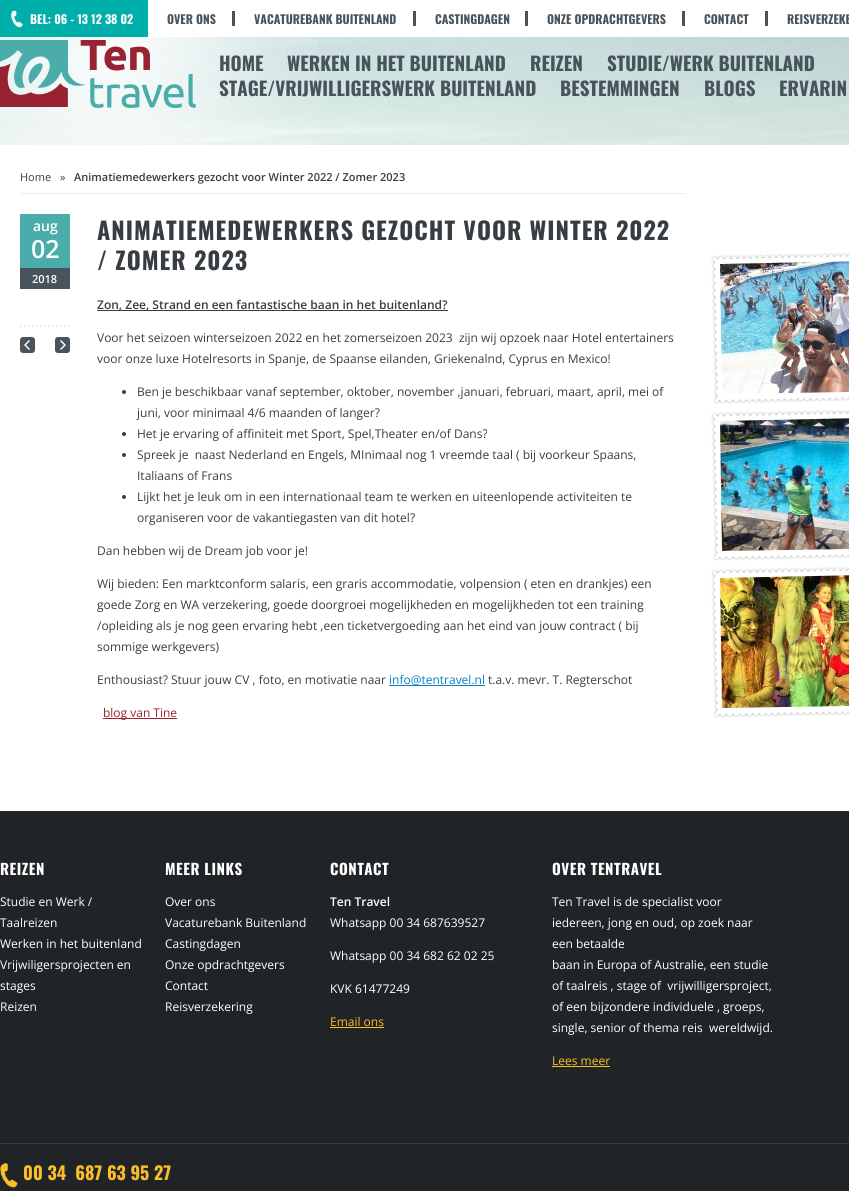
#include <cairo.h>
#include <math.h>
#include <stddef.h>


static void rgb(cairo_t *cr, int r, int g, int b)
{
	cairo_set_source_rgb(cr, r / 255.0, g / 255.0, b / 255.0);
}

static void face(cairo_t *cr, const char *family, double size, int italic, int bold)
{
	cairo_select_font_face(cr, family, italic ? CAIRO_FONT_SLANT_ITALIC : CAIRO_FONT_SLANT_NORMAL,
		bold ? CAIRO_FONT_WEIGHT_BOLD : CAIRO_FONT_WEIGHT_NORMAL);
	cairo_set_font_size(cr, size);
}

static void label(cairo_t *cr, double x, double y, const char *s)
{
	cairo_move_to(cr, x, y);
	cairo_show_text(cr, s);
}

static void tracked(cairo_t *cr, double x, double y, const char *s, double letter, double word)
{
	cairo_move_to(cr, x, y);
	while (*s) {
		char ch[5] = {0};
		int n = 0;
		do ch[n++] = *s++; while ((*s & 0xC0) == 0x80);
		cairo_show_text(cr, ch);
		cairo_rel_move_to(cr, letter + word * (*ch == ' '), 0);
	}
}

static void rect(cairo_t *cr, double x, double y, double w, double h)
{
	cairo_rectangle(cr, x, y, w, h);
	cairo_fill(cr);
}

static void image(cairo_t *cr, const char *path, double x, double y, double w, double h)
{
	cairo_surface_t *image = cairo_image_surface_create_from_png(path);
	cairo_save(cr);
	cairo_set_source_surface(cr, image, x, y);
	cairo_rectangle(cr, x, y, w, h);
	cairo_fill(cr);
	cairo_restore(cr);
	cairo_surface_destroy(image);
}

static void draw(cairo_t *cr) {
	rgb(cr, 255, 255, 255);
	cairo_paint(cr);
	image(cr, "image0.png", 0, 37, 849, 108);
	rgb(cr, 0, 175, 170);
	rect(cr, 0, 0, 148, 37);
	image(cr, "image1.png", 10, 10, 13, 18);
	face(cr, "Oswald", 12, 0, 1);
	rgb(cr, 255, 255, 255);
	label(cr, 30, 24, "BEL: 06 - 13 12 38 02");
	rgb(cr, 72, 83, 91);
	rect(cr, 232, 11, 3, 15);
	label(cr, 167, 24, "OVER ONS");
	rect(cr, 413, 11, 3, 15);
	label(cr, 254, 24, "VACATUREBANK BUITENLAND");
	rect(cr, 525, 11, 3, 15);
	label(cr, 435, 24, "CASTINGDAGEN");
	rect(cr, 682, 11, 3, 15);
	label(cr, 547, 24, "ONZE OPDRACHTGEVERS");
	rect(cr, 765, 11, 3, 15);
	label(cr, 704, 24, "CONTACT");
	label(cr, 787, 24, "REISVERZEKE");
	image(cr, "image2.png", 0, 37, 318, 108);
	face(cr, "Oswald", 19, 0, 1);
	label(cr, 219, 71, "HOME");
	label(cr, 287, 71, "WERKEN IN HET BUITENLAND");
	label(cr, 530, 71, "REIZEN");
	label(cr, 607, 71, "STUDIE/WERK BUITENLAND");
	label(cr, 219, 96, "STAGE/VRIJWILLIGERSWERK BUITENLAND");
	label(cr, 560, 96, "BESTEMMINGEN");
	label(cr, 704, 96, "BLOGS");
	label(cr, 779, 96, "ERVARIN");
	rgb(cr, 234, 237, 231);
	rect(cr, 20, 193, 666, 1);
	face(cr, "Open Sans", 11, 0, 0);
	rgb(cr, 55, 62, 67);
	label(cr, 20, 181, "Home");
	label(cr, 60, 181, "»");
	face(cr, "Open Sans SemiBold", 11, 0, 0);
	label(cr, 74, 181, "Animatiemedewerkers gezocht voor Winter 2022 / Zomer 2023");
	rgb(cr, 75, 173, 169);
	rect(cr, 20, 214, 50, 54);
	face(cr, "Open Sans SemiBold", 14, 0, 0);
	rgb(cr, 255, 255, 255);
	label(cr, 33, 231, "aug");
	face(cr, "Open Sans SemiBold", 25, 0, 0);
	label(cr, 31, 258, "02");
	rgb(cr, 72, 83, 91);
	rect(cr, 20, 268, 50, 21);
	face(cr, "Open Sans SemiBold", 11, 0, 0);
	rgb(cr, 255, 255, 255);
	label(cr, 32, 283, "2018");
	face(cr, "Oswald", 24, 0, 1);
	rgb(cr, 55, 62, 67);
	tracked(cr, 97, 240, "ANIMATIEMEDEWERKERS GEZOCHT VOOR WINTER 2022", 1, 0);
	tracked(cr, 97, 270, "/ ZOMER 2023", 1, 0);
	rect(cr, 97, 310, 351, 1);
	face(cr, "Open Sans SemiBold", 12, 0, 0);
	label(cr, 97, 309, "Zon, Zee, Strand en een fantastische baan in het buitenland?");
	face(cr, "Open Sans", 12, 0, 0);
	label(cr, 97, 342, "Voor het seizoen winterseizoen 2022 en het zomerseizoen 2023  zijn wij opzoek naar Hotel entertainers");
	label(cr, 97, 363, "voor onze luxe Hotelresorts in Spanje, de Spaanse eilanden, Griekenalnd, Cyprus en Mexico!");
	cairo_new_path(cr);
	cairo_arc(cr, 124, 392, 2, 0, 2 * M_PI);
	cairo_fill(cr);
	label(cr, 137, 396, "Ben je beschikbaar vanaf september, oktober, november ,januari, februari, maart, april, mei of");
	label(cr, 137, 417, "juni, voor minimaal 4/6 maanden of langer?");
	cairo_new_path(cr);
	cairo_arc(cr, 124, 434, 2, 0, 2 * M_PI);
	cairo_fill(cr);
	label(cr, 137, 438, "Het je ervaring of affiniteit met Sport, Spel,Theater en/of Dans?");
	cairo_new_path(cr);
	cairo_arc(cr, 124, 455, 2, 0, 2 * M_PI);
	cairo_fill(cr);
	label(cr, 137, 459, "Spreek je  naast Nederland en Engels, MInimaal nog 1 vreemde taal ( bij voorkeur Spaans,");
	label(cr, 137, 480, "Italiaans of Frans");
	cairo_new_path(cr);
	cairo_arc(cr, 124, 497, 2, 0, 2 * M_PI);
	cairo_fill(cr);
	label(cr, 137, 501, "Lijkt het je leuk om in een internationaal team te werken en uiteenlopende activiteiten te");
	label(cr, 137, 522, "organiseren voor de vakantiegasten van dit hotel?");
	label(cr, 97, 555, "Dan hebben wij de Dream job voor je!");
	label(cr, 97, 588, "Wij bieden: Een marktconform salaris, een graris accommodatie, volpension ( eten en drankjes) een");
	label(cr, 97, 609, "goede Zorg en WA verzekering, goede doorgroei mogelijkheden en mogelijkheden tot een training");
	label(cr, 97, 630, "/opleiding als je nog geen ervaring hebt ,een ticketvergoeding aan het eind van jouw contract ( bij");
	label(cr, 97, 651, "sommige werkgevers)");
	label(cr, 97, 684, "Enthousiast? Stuur jouw CV , foto, en motivatie naar");
	rgb(cr, 7, 130, 193);
	rect(cr, 389, 685, 96, 1);
	label(cr, 389, 684, "info@tentravel.nl");
	rgb(cr, 55, 62, 67);
	label(cr, 488, 684, "t.a.v. mevr. T. Regterschot");
	rgb(cr, 152, 33, 50);
	rect(cr, 103, 718, 74, 1);
	label(cr, 103, 717, "blog van Tine");
	cairo_new_path(cr);
	cairo_move_to(cr, 20, 326);
	cairo_line_to(cr, 70, 326);
	rgb(cr, 234, 237, 231);
	cairo_set_dash(cr, (double[]){2, 2}, 2, 0);
	cairo_stroke(cr);
	image(cr, "image3.png", 20, 337, 15, 16);
	image(cr, "image4.png", 55, 337, 15, 16);
	image(cr, "image5.png", 720, 261, 129, 133);
	image(cr, "image6.png", 711, 253, 138, 151);
	image(cr, "image7.png", 720, 418, 129, 133);
	image(cr, "image8.png", 711, 410, 138, 151);
	image(cr, "image9.png", 720, 575, 129, 133);
	image(cr, "image10.png", 711, 567, 138, 151);
	rgb(cr, 33, 36, 39);
	rect(cr, 0, 811, 849, 332);
	face(cr, "Oswald", 15, 0, 1);
	rgb(cr, 255, 255, 255);
	tracked(cr, 0, 875, "REIZEN", 0.5, 0);
	face(cr, "Open Sans", 12, 0, 0);
	label(cr, 0, 906, "Studie en Werk /");
	label(cr, 0, 927, "Taalreizen");
	label(cr, 0, 948, "Werken in het buitenland");
	label(cr, 0, 969, "Vrijwiligersprojecten en");
	label(cr, 0, 990, "stages");
	label(cr, 0, 1011, "Reizen");
	face(cr, "Oswald", 15, 0, 1);
	tracked(cr, 165, 875, "MEER LINKS", 0.5, 0);
	face(cr, "Open Sans", 12, 0, 0);
	label(cr, 165, 906, "Over ons");
	label(cr, 165, 927, "Vacaturebank Buitenland");
	label(cr, 165, 948, "Castingdagen");
	label(cr, 165, 969, "Onze opdrachtgevers");
	label(cr, 165, 990, "Contact");
	label(cr, 165, 1011, "Reisverzekering");
	face(cr, "Oswald", 15, 0, 1);
	tracked(cr, 330, 875, "CONTACT", 0.5, 0);
	face(cr, "Open Sans SemiBold", 12, 0, 0);
	label(cr, 330, 906, "Ten Travel");
	face(cr, "Open Sans", 12, 0, 0);
	label(cr, 330, 927, "Whatsapp 00 34 687639527");
	label(cr, 330, 960, "Whatsapp 00 34 682 62 02 25");
	label(cr, 330, 993, "KVK 61477249");
	rgb(cr, 251, 189, 41);
	label(cr, 330, 1026, "Email ons");
	rect(cr, 330, 1027, 54, 1);
	face(cr, "Oswald", 15, 0, 1);
	rgb(cr, 255, 255, 255);
	tracked(cr, 552, 875, "OVER TENTRAVEL", 0.5, 0);
	face(cr, "Open Sans", 12, 0, 0);
	label(cr, 552, 906, "Ten Travel is de specialist voor");
	label(cr, 552, 927, "iedereen, jong en oud, op zoek naar");
	label(cr, 552, 948, "een betaalde");
	label(cr, 552, 969, "baan in Europa of Australie, een studie");
	label(cr, 552, 990, "of taalreis , stage of  vrijwilligersproject,");
	label(cr, 552, 1011, "of een bijzondere individuele , groeps,");
	label(cr, 552, 1032, "single, senior of thema reis  wereldwijd.");
	rgb(cr, 251, 189, 41);
	label(cr, 552, 1065, "Lees meer");
	rect(cr, 552, 1066, 58, 1);
	rgb(cr, 33, 36, 39);
	rect(cr, 0, 1144, 849, 47);
	rgb(cr, 55, 62, 67);
	rect(cr, 0, 1143, 849, 1);
	image(cr, "image11.png", 0, 1163, 18, 25);
	face(cr, "Oswald", 18, 0, 1);
	rgb(cr, 251, 189, 41);
	label(cr, 23, 1180, "00 34  687 63 95 27");
}

int main(void) {
	cairo_surface_t *surface = cairo_image_surface_create(CAIRO_FORMAT_RGB24, 849, 1191);
	cairo_t *cr = cairo_create(surface);
	cairo_font_options_t *options = cairo_font_options_create();
	cairo_font_options_set_hint_metrics(options, CAIRO_HINT_METRICS_OFF);
	cairo_font_options_set_hint_style(options, CAIRO_HINT_STYLE_NONE);
	cairo_set_font_options(cr, options);
	cairo_set_miter_limit(cr, 4);
	draw(cr);
	cairo_surface_write_to_png(surface, "render.png");
	cairo_font_options_destroy(options);
	cairo_destroy(cr);
	cairo_surface_destroy(surface);
	return 0;
}
